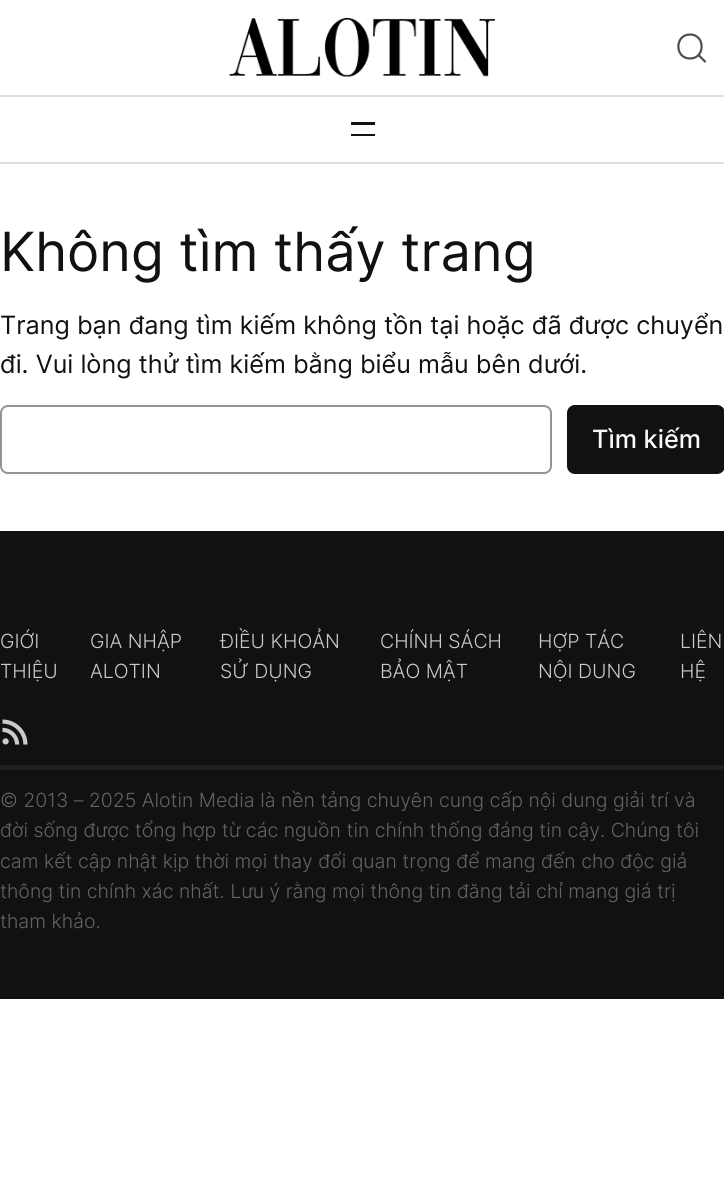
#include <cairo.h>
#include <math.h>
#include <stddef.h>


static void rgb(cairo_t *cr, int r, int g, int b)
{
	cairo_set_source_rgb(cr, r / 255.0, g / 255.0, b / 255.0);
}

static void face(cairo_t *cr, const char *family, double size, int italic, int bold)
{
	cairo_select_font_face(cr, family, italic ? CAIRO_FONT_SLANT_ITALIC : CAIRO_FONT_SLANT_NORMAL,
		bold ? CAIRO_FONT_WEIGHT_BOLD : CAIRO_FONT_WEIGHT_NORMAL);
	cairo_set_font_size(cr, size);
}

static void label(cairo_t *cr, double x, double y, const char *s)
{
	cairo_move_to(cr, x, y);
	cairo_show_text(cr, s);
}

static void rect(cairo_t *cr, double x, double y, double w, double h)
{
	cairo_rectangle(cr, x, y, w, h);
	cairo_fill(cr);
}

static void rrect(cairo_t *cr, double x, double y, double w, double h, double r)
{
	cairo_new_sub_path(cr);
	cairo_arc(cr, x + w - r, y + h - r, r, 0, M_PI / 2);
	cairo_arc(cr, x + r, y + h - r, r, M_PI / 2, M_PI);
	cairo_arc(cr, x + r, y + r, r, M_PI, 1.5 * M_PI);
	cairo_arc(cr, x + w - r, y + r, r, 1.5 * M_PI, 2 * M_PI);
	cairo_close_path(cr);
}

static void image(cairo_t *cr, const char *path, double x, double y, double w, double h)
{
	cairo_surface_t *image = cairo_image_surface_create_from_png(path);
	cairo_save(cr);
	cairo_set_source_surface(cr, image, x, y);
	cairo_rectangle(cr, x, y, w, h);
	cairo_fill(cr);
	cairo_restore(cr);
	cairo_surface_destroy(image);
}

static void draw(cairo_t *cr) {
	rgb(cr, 255, 255, 255);
	cairo_paint(cr);
	image(cr, "image0.png", 229, 18, 266, 59);
	cairo_new_path(cr);
	cairo_move_to(cr, 690, 58.5);
	cairo_curve_to(cr, 705.5, 58.5, 705.5, 34.5, 690, 34.5);
	cairo_curve_to(cr, 674.5, 34.5, 674.5, 58.5, 690, 58.5);
	cairo_close_path(cr);
	cairo_move_to(cr, 705, 61.5);
	cairo_line_to(cr, 698.5, 55);
	rgb(cr, 77, 77, 77);
	cairo_set_line_width(cr, 2.2);
	cairo_set_line_cap(cr, CAIRO_LINE_CAP_ROUND);
	cairo_stroke(cr);
	rgb(cr, 223, 223, 223);
	rect(cr, 0, 95, 724, 2);
	rect(cr, 0, 162, 724, 2);
	rgb(cr, 17, 17, 17);
	rect(cr, 351, 122, 24, 3);
	rect(cr, 351, 134, 24, 2);
	face(cr, "Inter", 54, 0, 0);
	label(cr, 0, 271, "Không tìm thấy trang");
	face(cr, "Inter", 25.2, 0, 0);
	label(cr, 0, 334, "Trang bạn đang tìm kiếm không tồn tại hoặc đã được chuyển");
	label(cr, 0, 373, "đi. Vui lòng thử tìm kiếm bằng biểu mẫu bên dưới.");
	rrect(cr, 1, 406, 550, 67, 7);
	rgb(cr, 148, 148, 148);
	cairo_set_line_width(cr, 2);
	cairo_set_line_cap(cr, CAIRO_LINE_CAP_BUTT);
	cairo_stroke(cr);
	rgb(cr, 17, 17, 17);
	rrect(cr, 567, 405, 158, 69, 8);
	cairo_fill(cr);
	face(cr, "Inter Medium", 25.2, 0, 0);
	rgb(cr, 249, 249, 249);
	label(cr, 592, 448, "Tìm kiếm");
	rgb(cr, 17, 17, 17);
	rect(cr, 0, 531, 724, 468);
	face(cr, "Inter Light", 19.5, 0, 0);
	rgb(cr, 203, 203, 203);
	label(cr, 0, 648, "GIỚI");
	label(cr, 0, 678, "THIỆU");
	label(cr, 90, 648, "GIA NHẬP");
	label(cr, 90, 678, "ALOTIN");
	label(cr, 220, 648, "ĐIỀU KHOẢN");
	label(cr, 220, 678, "SỬ DỤNG");
	label(cr, 380, 648, "CHÍNH SÁCH");
	label(cr, 380, 678, "BẢO MẬT");
	label(cr, 538, 648, "HỢP TÁC");
	label(cr, 538, 678, "NỘI DUNG");
	label(cr, 680, 648, "LIÊN");
	label(cr, 680, 678, "HỆ");
	image(cr, "image1.png", 2, 719, 26, 26);
	rgb(cr, 31, 31, 31);
	rect(cr, 0, 765, 724, 5);
	rgb(cr, 99, 99, 99);
	label(cr, 0, 807, "© 2013 – 2025 Alotin Media là nền tảng chuyên cung cấp nội dung giải trí và");
	label(cr, 0, 837, "đời sống được tổng hợp từ các nguồn tin chính thống đáng tin cậy. Chúng tôi");
	label(cr, 0, 868, "cam kết cập nhật kịp thời mọi thay đổi quan trọng để mang đến cho độc giả");
	label(cr, 0, 898, "thông tin chính xác nhất. Lưu ý rằng mọi thông tin đăng tải chỉ mang giá trị");
	label(cr, 0, 928, "tham khảo.");
}

int main(void) {
	cairo_surface_t *surface = cairo_image_surface_create(CAIRO_FORMAT_RGB24, 724, 1197);
	cairo_t *cr = cairo_create(surface);
	cairo_font_options_t *options = cairo_font_options_create();
	cairo_font_options_set_hint_metrics(options, CAIRO_HINT_METRICS_OFF);
	cairo_font_options_set_hint_style(options, CAIRO_HINT_STYLE_NONE);
	cairo_set_font_options(cr, options);
	cairo_set_miter_limit(cr, 4);
	draw(cr);
	cairo_surface_write_to_png(surface, "render.png");
	cairo_font_options_destroy(options);
	cairo_destroy(cr);
	cairo_surface_destroy(surface);
	return 0;
}
